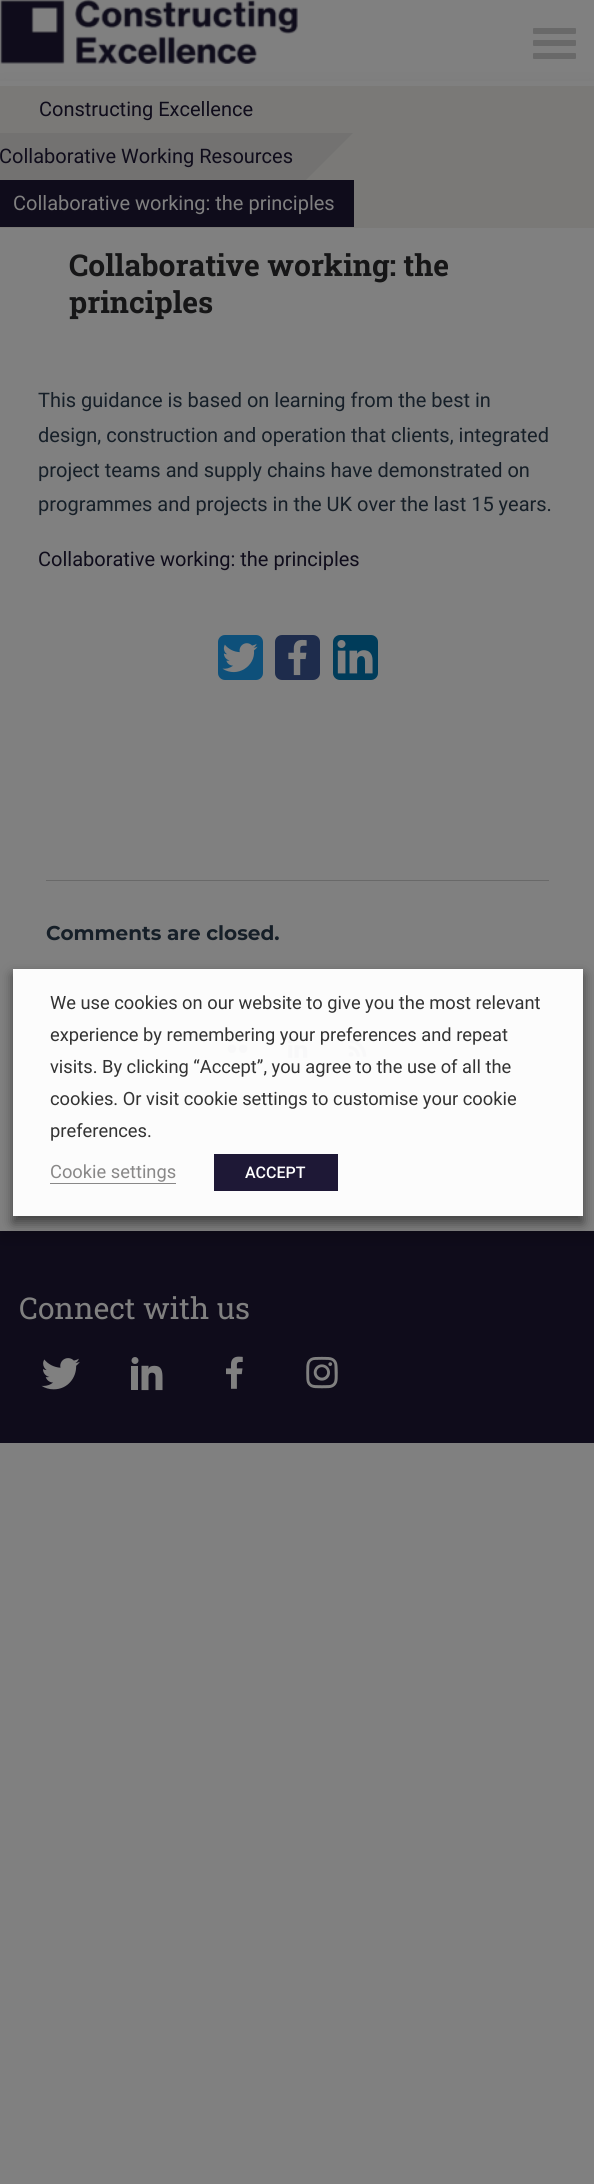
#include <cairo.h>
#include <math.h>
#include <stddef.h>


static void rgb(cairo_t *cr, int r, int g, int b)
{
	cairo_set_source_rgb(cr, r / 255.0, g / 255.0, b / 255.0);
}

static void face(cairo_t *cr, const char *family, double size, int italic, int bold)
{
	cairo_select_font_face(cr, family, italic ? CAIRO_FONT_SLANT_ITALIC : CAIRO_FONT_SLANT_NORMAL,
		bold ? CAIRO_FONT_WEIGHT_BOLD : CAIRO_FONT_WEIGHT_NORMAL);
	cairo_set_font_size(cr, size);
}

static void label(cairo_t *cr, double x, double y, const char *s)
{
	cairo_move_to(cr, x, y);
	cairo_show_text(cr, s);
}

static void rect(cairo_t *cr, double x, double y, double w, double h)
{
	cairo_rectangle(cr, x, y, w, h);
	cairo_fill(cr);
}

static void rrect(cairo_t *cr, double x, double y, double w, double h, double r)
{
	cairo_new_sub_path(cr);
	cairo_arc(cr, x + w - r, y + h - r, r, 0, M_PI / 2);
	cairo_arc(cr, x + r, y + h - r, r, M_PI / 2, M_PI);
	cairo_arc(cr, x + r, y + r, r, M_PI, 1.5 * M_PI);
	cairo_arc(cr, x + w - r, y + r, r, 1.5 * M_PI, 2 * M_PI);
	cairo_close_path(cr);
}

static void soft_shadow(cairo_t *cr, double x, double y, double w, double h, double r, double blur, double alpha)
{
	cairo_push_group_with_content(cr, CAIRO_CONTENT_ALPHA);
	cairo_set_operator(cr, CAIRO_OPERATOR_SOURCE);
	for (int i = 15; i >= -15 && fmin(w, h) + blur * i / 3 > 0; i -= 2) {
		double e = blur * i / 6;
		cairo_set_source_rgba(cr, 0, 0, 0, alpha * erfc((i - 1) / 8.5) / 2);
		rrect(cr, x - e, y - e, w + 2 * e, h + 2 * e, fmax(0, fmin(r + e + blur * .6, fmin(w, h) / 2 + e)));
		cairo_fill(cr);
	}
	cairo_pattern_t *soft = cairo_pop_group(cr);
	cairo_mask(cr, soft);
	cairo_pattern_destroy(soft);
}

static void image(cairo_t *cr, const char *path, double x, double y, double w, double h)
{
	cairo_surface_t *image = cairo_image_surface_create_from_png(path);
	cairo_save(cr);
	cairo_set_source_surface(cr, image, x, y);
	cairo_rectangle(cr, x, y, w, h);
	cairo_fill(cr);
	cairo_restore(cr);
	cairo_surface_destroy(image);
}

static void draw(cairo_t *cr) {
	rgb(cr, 128, 128, 128);
	cairo_paint(cr);
	rgb(cr, 15, 12, 27);
	rect(cr, 0, 1231, 594, 212);
	rgb(cr, 0, 0, 0);
	soft_shadow(cr, 0, 93, 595, 1145, 0, 9.5, 0.2);
	cairo_set_source_rgba(cr, 0.502, 0.502, 0.502, 0.95);
	rect(cr, 0, 81, 594, 5);
	image(cr, "image0.png", 0, 0, 298, 64);
	rgb(cr, 105, 105, 105);
	rrect(cr, 533, 40, 43, 6, 1);
	cairo_fill(cr);
	rrect(cr, 533, 28, 43, 6, 1);
	cairo_fill(cr);
	rrect(cr, 533, 53, 43, 6, 1);
	cairo_fill(cr);
	rgb(cr, 128, 128, 128);
	rect(cr, 0, 228, 594, 1003);
	rgb(cr, 122, 121, 119);
	rect(cr, 0, 86, 594, 142);
	face(cr, "Roboto", 20, 0, 0);
	rgb(cr, 15, 12, 27);
	label(cr, 39, 116, "Constructing Excellence");
	rgb(cr, 115, 114, 113);
	cairo_new_path(cr);
	cairo_move_to(cr, -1, 133);
	cairo_line_to(cr, 353, 133);
	cairo_line_to(cr, 306, 180);
	cairo_line_to(cr, -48, 180);
	cairo_close_path(cr);
	cairo_fill(cr);
	rgb(cr, 15, 12, 27);
	label(cr, -1, 163, "Collaborative Working Resources");
	cairo_save(cr);
	cairo_rectangle(cr, 0, 180, 354, 48);
	cairo_clip(cr);
	cairo_new_path(cr);
	cairo_move_to(cr, 0, 180);
	cairo_line_to(cr, 401, 180);
	cairo_line_to(cr, 354, 227);
	cairo_line_to(cr, -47, 227);
	cairo_close_path(cr);
	cairo_fill(cr);
	cairo_restore(cr);
	rgb(cr, 128, 128, 128);
	label(cr, 13, 210, "Collaborative working: the principles");
	face(cr, "Roboto Slab", 30, 0, 1);
	rgb(cr, 22, 22, 23);
	label(cr, 69, 276, "Collaborative working: the");
	label(cr, 69, 313, "principles");
	face(cr, "Roboto", 20, 0, 0);
	rgb(cr, 22, 31, 40);
	label(cr, 38, 407, "This guidance is based on learning from the best in");
	label(cr, 38, 442, "design, construction and operation that clients, integrated");
	label(cr, 38, 477, "project teams and supply chains have demonstrated on");
	label(cr, 38, 511, "programmes and projects in the UK over the last 15 years.");
	rgb(cr, 15, 12, 27);
	label(cr, 38, 566, "Collaborative working: the principles");
	image(cr, "image1.png", 218, 635, 45, 45);
	image(cr, "image2.png", 275, 635, 45, 45);
	image(cr, "image3.png", 333, 635, 45, 45);
	rgb(cr, 105, 105, 105);
	rect(cr, 46, 880, 503, 1);
	face(cr, "Montserrat", 20, 0, 1);
	rgb(cr, 22, 31, 40);
	label(cr, 46, 940, "Comments are closed.");
	image(cr, "image4.png", 227, 1044, 21, 9);
	image(cr, "image5.png", 287, 1039, 21, 19);
	image(cr, "image6.png", 348, 1039, 19, 18);
	face(cr, "Roboto Slab", 30, 0, 0);
	rgb(cr, 128, 128, 128);
	label(cr, 19, 1319, "Connect with us");
	image(cr, "image7.png", 41, 1358, 39, 32);
	image(cr, "image8.png", 131, 1357, 32, 34);
	image(cr, "image9.png", 226, 1356, 17, 33);
	image(cr, "image10.png", 306, 1356, 32, 33);
	cairo_save(cr);
	cairo_set_fill_rule(cr, CAIRO_FILL_RULE_EVEN_ODD);
	cairo_new_path(cr);
	cairo_move_to(cr, 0, 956);
	cairo_line_to(cr, 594, 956);
	cairo_line_to(cr, 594, 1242);
	cairo_line_to(cr, 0, 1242);
	cairo_close_path(cr);
	cairo_move_to(cr, 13, 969);
	cairo_line_to(cr, 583, 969);
	cairo_line_to(cr, 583, 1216);
	cairo_line_to(cr, 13, 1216);
	cairo_close_path(cr);
	cairo_clip(cr);
	rgb(cr, 0, 0, 0);
	soft_shadow(cr, 13, 975, 570, 248, 0, 6, 0.5);
	cairo_restore(cr);
	cairo_set_source_rgba(cr, 1, 1, 1, 0.97);
	rect(cr, 13, 969, 570, 247);
	face(cr, "Roboto", 18.3, 0, 0);
	rgb(cr, 51, 51, 51);
	label(cr, 50, 1009, "We use cookies on our website to give you the most relevant");
	label(cr, 50, 1041, "experience by remembering your preferences and repeat");
	label(cr, 50, 1073, "visits. By clicking “Accept”, you agree to the use of all the");
	label(cr, 50, 1105, "cookies. Or visit cookie settings to customise your cookie");
	label(cr, 50, 1137, "preferences.");
	rgb(cr, 137, 136, 136);
	label(cr, 50, 1178, "Cookie settings");
	rect(cr, 50, 1183, 126, 1);
	rgb(cr, 30, 24, 54);
	rect(cr, 214, 1154, 124, 37);
	face(cr, "Roboto Medium", 16, 0, 0);
	rgb(cr, 255, 255, 255);
	label(cr, 245, 1178, "ACCEPT");
}

int main(void) {
	cairo_surface_t *surface = cairo_image_surface_create(CAIRO_FORMAT_RGB24, 594, 2184);
	cairo_t *cr = cairo_create(surface);
	cairo_font_options_t *options = cairo_font_options_create();
	cairo_font_options_set_hint_metrics(options, CAIRO_HINT_METRICS_OFF);
	cairo_font_options_set_hint_style(options, CAIRO_HINT_STYLE_NONE);
	cairo_set_font_options(cr, options);
	cairo_set_miter_limit(cr, 4);
	draw(cr);
	cairo_surface_write_to_png(surface, "render.png");
	cairo_font_options_destroy(options);
	cairo_destroy(cr);
	cairo_surface_destroy(surface);
	return 0;
}
